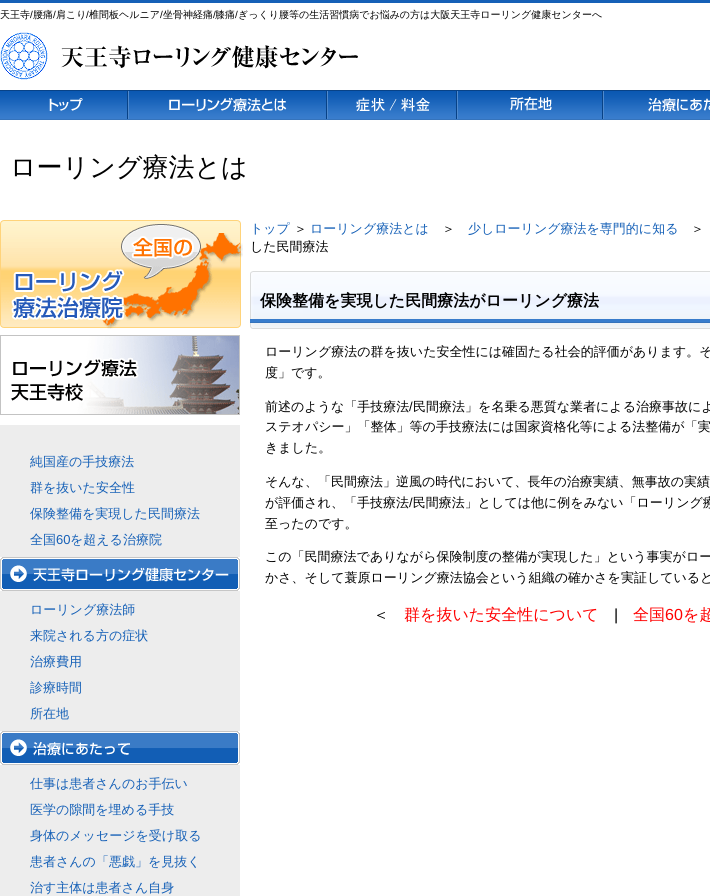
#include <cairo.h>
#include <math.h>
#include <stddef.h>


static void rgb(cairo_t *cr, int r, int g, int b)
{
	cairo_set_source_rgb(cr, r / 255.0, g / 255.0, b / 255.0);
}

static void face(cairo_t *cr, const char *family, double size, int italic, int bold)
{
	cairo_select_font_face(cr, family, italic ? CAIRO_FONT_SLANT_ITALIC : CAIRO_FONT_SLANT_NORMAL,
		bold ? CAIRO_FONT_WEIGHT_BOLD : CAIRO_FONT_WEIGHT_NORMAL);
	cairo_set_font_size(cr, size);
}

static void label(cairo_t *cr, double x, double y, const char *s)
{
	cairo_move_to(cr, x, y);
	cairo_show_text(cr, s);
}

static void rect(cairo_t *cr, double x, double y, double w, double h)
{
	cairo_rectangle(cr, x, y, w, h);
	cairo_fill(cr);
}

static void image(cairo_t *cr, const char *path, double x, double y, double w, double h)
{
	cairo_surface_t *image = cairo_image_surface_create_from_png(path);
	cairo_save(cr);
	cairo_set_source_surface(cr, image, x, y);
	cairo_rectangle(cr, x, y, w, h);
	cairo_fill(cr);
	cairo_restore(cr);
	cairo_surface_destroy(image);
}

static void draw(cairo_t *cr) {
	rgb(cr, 255, 255, 255);
	cairo_paint(cr);
	rgb(cr, 21, 96, 183);
	rect(cr, 0, 0, 710, 3);
	face(cr, "WenQuanYi Zen Hei Medium", 10, 0, 0);
	rgb(cr, 0, 0, 0);
	label(cr, 0, 18, "天王寺");
	face(cr, "Liberation Sans", 10, 0, 0);
	label(cr, 30, 18, "/");
	face(cr, "WenQuanYi Zen Hei Medium", 10, 0, 0);
	label(cr, 33, 18, "腰痛");
	face(cr, "Liberation Sans", 10, 0, 0);
	label(cr, 53, 18, "/");
	face(cr, "WenQuanYi Zen Hei Medium", 10, 0, 0);
	label(cr, 56, 18, "肩こり");
	face(cr, "Liberation Sans", 10, 0, 0);
	label(cr, 86, 18, "/");
	face(cr, "WenQuanYi Zen Hei Medium", 10, 0, 0);
	label(cr, 89, 18, "椎間板ヘルニア");
	face(cr, "Liberation Sans", 10, 0, 0);
	label(cr, 160, 18, "/");
	face(cr, "WenQuanYi Zen Hei Medium", 10, 0, 0);
	label(cr, 163, 18, "坐骨神経痛");
	face(cr, "Liberation Sans", 10, 0, 0);
	label(cr, 213, 18, "/");
	face(cr, "WenQuanYi Zen Hei Medium", 10, 0, 0);
	label(cr, 215, 18, "膝痛 ぎっくり腰等の生活習慣病でお悩みの方は大阪天王寺ローリング健康センターへ");
	face(cr, "Liberation Sans", 10, 0, 0);
	label(cr, 235, 18, "/");
	image(cr, "image0.png", 0, 32, 358, 48);
	image(cr, "image1.png", 0, 90, 128, 30);
	image(cr, "image2.png", 128, 90, 199, 30);
	image(cr, "image3.png", 327, 90, 130, 30);
	image(cr, "image4.png", 457, 90, 146, 30);
	image(cr, "image5.png", 603, 90, 107, 30);
	face(cr, "WenQuanYi Zen Hei Medium", 26, 0, 0);
	label(cr, 10, 176, "ローリング療法とは");
	image(cr, "image6.png", 0, 220, 243, 109);
	image(cr, "image7.png", 0, 335, 240, 80);
	rgb(cr, 237, 237, 237);
	rect(cr, 0, 425, 240, 471);
	face(cr, "WenQuanYi Zen Hei Medium", 13, 0, 0);
	rgb(cr, 21, 96, 183);
	label(cr, 30, 466, "純国産の手技療法");
	label(cr, 30, 492, "群を抜いた安全性");
	label(cr, 30, 518, "保険整備を実現した民間療法");
	label(cr, 30, 544, "全国");
	face(cr, "Liberation Sans", 13, 0, 0);
	label(cr, 56, 544, "60");
	face(cr, "WenQuanYi Zen Hei Medium", 13, 0, 0);
	label(cr, 70, 544, "を超える治療院");
	image(cr, "image8.png", 0, 557, 240, 34);
	label(cr, 30, 614, "ローリング療法師");
	label(cr, 30, 640, "来院される方の症状");
	label(cr, 30, 666, "治療費用");
	label(cr, 30, 692, "診療時間");
	label(cr, 30, 718, "所在地");
	image(cr, "image9.png", 0, 731, 240, 34);
	label(cr, 30, 788, "仕事は患者さんのお手伝い");
	label(cr, 30, 814, "医学の隙間を埋める手技");
	label(cr, 30, 840, "身体のメッセージを受け取る");
	label(cr, 30, 866, "患者さんの「悪戯」を見抜く");
	label(cr, 30, 892, "治す主体は患者さん自身");
	label(cr, 250, 233, "トップ");
	rgb(cr, 0, 0, 0);
	label(cr, 294, 233, "＞");
	rgb(cr, 21, 96, 183);
	label(cr, 310, 233, "ローリング療法とは");
	rgb(cr, 0, 0, 0);
	label(cr, 442, 233, "＞");
	rgb(cr, 21, 96, 183);
	label(cr, 468, 233, "少しローリング療法を専門的に知る");
	rgb(cr, 0, 0, 0);
	label(cr, 691, 233, "＞");
	label(cr, 250, 251, "した民間療法");
	image(cr, "image10.png", 250, 271, 460, 58);
	face(cr, "WenQuanYi Zen Hei", 16, 0, 1);
	label(cr, 260, 306, "保険整備を実現した民間療法がローリング療法");
	face(cr, "WenQuanYi Zen Hei Medium", 13, 0, 0);
	label(cr, 265, 356, "ローリング療法の群を抜いた安全性には確固たる社会的評価があります。そ");
	label(cr, 265, 377, "度」です。");
	label(cr, 265, 411, "前述のような「手技療法 民間療法」を名乗る悪質な業者による治療事故によ");
	face(cr, "Liberation Sans", 13, 0, 0);
	label(cr, 409, 411, "/");
	face(cr, "WenQuanYi Zen Hei Medium", 13, 0, 0);
	label(cr, 265, 431, "ステオパシー」「整体」等の手技療法には国家資格化等による法整備が「実");
	label(cr, 265, 452, "きました。");
	label(cr, 265, 486, "そんな、「民間療法」逆風の時代において、長年の治療実績、無事故の実績");
	label(cr, 265, 507, "が評価され、「手技療法 民間療法」としては他に例をみない「ローリング療");
	face(cr, "Liberation Sans", 13, 0, 0);
	label(cr, 409, 507, "/");
	face(cr, "WenQuanYi Zen Hei Medium", 13, 0, 0);
	label(cr, 265, 528, "至ったのです。");
	label(cr, 265, 561, "この「民間療法でありながら保険制度の整備が実現した」という事実がロー");
	label(cr, 265, 582, "かさ、そして蓑原ローリング療法協会という組織の確かさを実証していると");
	face(cr, "WenQuanYi Zen Hei Medium", 16, 0, 0);
	label(cr, 373, 620, "＜");
	rgb(cr, 255, 0, 0);
	label(cr, 404, 620, "群を抜いた安全性について");
	face(cr, "Liberation Sans", 16, 0, 0);
	rgb(cr, 0, 0, 0);
	label(cr, 614, 620, "|");
	face(cr, "WenQuanYi Zen Hei Medium", 16, 0, 0);
	rgb(cr, 255, 0, 0);
	label(cr, 633, 620, "全国");
	face(cr, "Liberation Sans", 16, 0, 0);
	label(cr, 665, 620, "60");
	face(cr, "WenQuanYi Zen Hei Medium", 16, 0, 0);
	label(cr, 683, 620, "を超");
}

int main(void) {
	cairo_surface_t *surface = cairo_image_surface_create(CAIRO_FORMAT_RGB24, 710, 896);
	cairo_t *cr = cairo_create(surface);
	cairo_font_options_t *options = cairo_font_options_create();
	cairo_font_options_set_hint_metrics(options, CAIRO_HINT_METRICS_OFF);
	cairo_font_options_set_hint_style(options, CAIRO_HINT_STYLE_NONE);
	cairo_set_font_options(cr, options);
	cairo_set_miter_limit(cr, 4);
	draw(cr);
	cairo_surface_write_to_png(surface, "render.png");
	cairo_font_options_destroy(options);
	cairo_destroy(cr);
	cairo_surface_destroy(surface);
	return 0;
}
